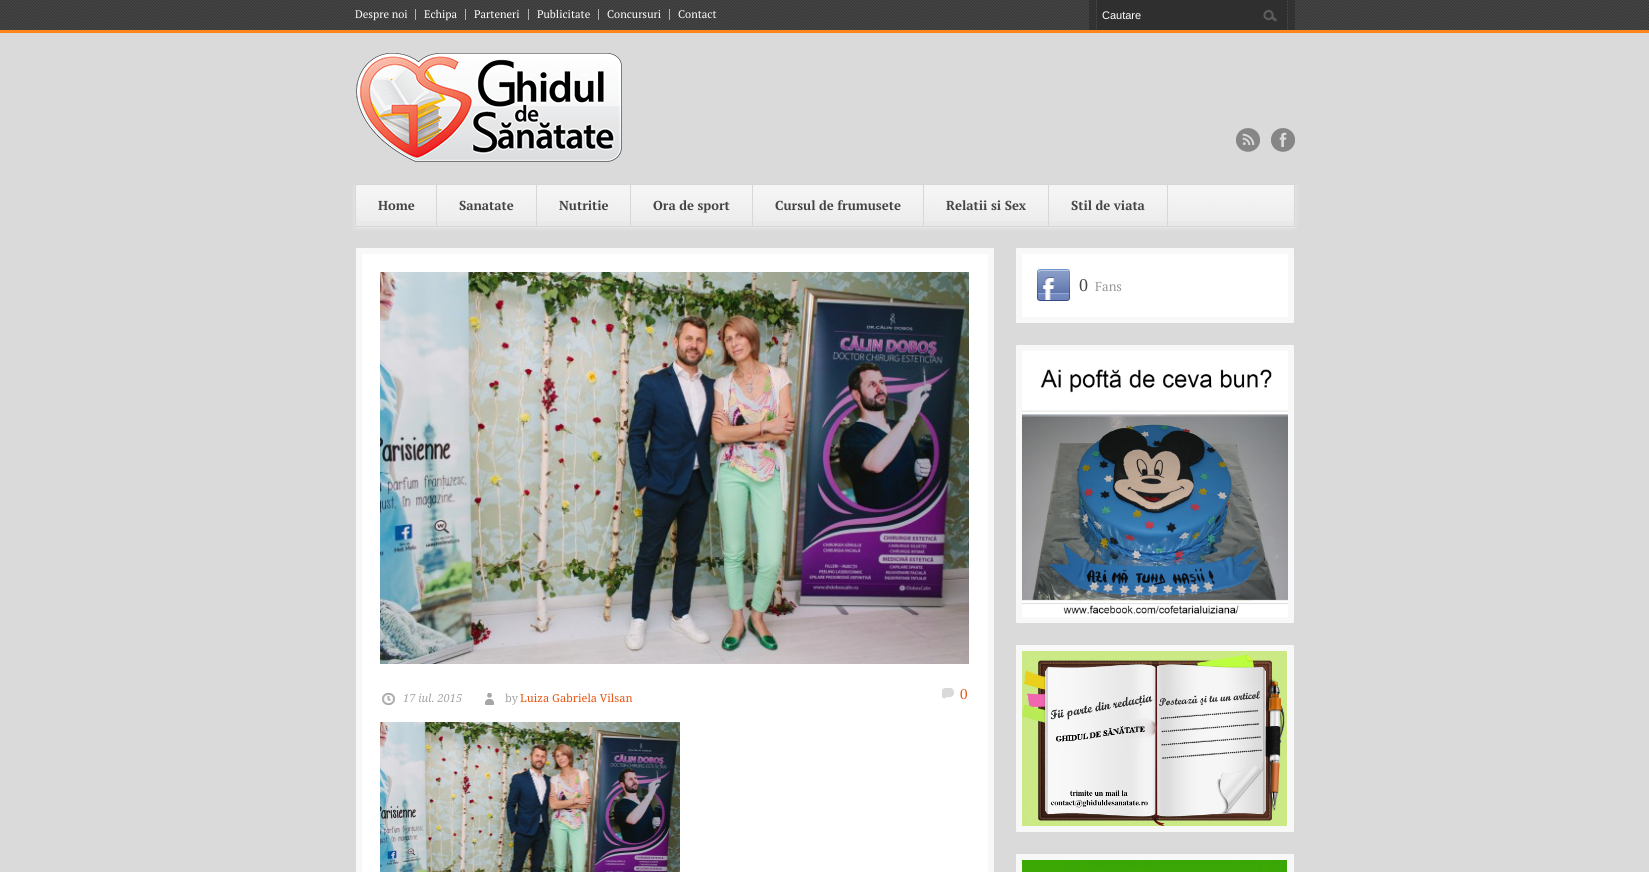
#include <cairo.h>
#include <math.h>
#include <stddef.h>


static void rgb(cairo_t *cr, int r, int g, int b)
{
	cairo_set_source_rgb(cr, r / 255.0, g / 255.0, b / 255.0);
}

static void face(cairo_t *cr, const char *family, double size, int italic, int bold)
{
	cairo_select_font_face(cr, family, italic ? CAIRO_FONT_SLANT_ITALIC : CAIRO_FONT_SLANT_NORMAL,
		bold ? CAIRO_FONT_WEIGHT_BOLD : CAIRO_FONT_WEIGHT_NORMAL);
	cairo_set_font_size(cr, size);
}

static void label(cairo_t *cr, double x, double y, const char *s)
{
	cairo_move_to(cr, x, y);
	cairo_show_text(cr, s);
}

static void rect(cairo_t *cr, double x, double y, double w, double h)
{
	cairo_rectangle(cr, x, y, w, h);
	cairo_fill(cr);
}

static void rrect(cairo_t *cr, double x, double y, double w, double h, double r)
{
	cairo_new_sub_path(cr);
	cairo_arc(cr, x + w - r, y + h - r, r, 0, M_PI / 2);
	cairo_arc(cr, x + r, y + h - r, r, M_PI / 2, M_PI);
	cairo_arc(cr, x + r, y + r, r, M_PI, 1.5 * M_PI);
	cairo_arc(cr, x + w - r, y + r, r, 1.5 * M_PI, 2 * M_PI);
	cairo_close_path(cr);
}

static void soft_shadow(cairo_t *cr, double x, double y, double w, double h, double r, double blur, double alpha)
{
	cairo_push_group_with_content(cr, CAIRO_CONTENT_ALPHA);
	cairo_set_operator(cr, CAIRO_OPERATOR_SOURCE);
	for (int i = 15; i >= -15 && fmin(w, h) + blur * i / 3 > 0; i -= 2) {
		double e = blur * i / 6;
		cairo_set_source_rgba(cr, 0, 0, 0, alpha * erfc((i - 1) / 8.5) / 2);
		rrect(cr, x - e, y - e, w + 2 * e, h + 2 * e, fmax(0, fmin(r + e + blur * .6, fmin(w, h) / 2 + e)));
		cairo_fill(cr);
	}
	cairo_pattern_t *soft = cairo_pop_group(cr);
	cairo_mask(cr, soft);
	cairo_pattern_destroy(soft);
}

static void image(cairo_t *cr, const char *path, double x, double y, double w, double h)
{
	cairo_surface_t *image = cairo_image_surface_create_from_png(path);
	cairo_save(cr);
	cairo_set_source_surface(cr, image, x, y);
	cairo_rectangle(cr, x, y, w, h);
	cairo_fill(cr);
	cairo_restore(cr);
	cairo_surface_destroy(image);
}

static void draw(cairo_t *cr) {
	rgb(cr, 218, 218, 218);
	cairo_paint(cr);
	rgb(cr, 68, 68, 68);
	rect(cr, 0, 0, 1649, 30);
	image(cr, "image0.png", 0, 0, 1649, 30);
	rgb(cr, 178, 178, 178);
	rect(cr, 415, 9, 1, 11);
	face(cr, "PT Serif", 11, 0, 0);
	rgb(cr, 255, 255, 255);
	label(cr, 355, 18, "Despre noi");
	rgb(cr, 178, 178, 178);
	rect(cr, 465, 9, 1, 11);
	rgb(cr, 255, 255, 255);
	label(cr, 424, 18, "Echipa");
	rgb(cr, 178, 178, 178);
	rect(cr, 528, 9, 1, 11);
	rgb(cr, 255, 255, 255);
	label(cr, 474, 18, "Parteneri");
	rgb(cr, 178, 178, 178);
	rect(cr, 598, 9, 1, 11);
	rgb(cr, 255, 255, 255);
	label(cr, 537, 18, "Publicitate");
	rgb(cr, 178, 178, 178);
	rect(cr, 669, 9, 1, 11);
	rgb(cr, 255, 255, 255);
	label(cr, 607, 18, "Concursuri");
	label(cr, 678, 18, "Contact");
	rgb(cr, 50, 50, 50);
	rect(cr, 1089, 0, 7, 30);
	rgb(cr, 47, 47, 47);
	rect(cr, 1097, 0, 190, 30);
	face(cr, "Liberation Sans", 11, 0, 0);
	rgb(cr, 255, 255, 255);
	label(cr, 1102, 19, "Cautare");
	image(cr, "image1.png", 1263, 9, 14, 13);
	rgb(cr, 50, 50, 50);
	rect(cr, 1288, 0, 7, 30);
	rgb(cr, 255, 133, 29);
	rect(cr, 0, 30, 1649, 3);
	image(cr, "image2.png", 356, 53, 266, 109);
	image(cr, "image3.png", 1236, 128, 24, 24);
	image(cr, "image4.png", 1271, 128, 24, 24);
	rgb(cr, 215, 215, 215);
	rect(cr, 355, 182, 940, 2);
	rgb(cr, 245, 245, 245);
	soft_shadow(cr, 356, 186, 938, 41, 0, 2.5, 1);
	rgb(cr, 233, 233, 233);
	rect(cr, 356, 185, 938, 41);
	image(cr, "image5.png", 356, 185, 938, 36);
	cairo_rectangle(cr, 355.5, 184.5, 939, 42);
	rgb(cr, 215, 215, 215);
	cairo_set_line_width(cr, 1);
	cairo_stroke(cr);
	rect(cr, 436, 185, 1, 41);
	face(cr, "PT Serif", 13, 0, 1);
	rgb(cr, 68, 68, 68);
	label(cr, 378, 210, "Home");
	rgb(cr, 215, 215, 215);
	rect(cr, 536, 185, 1, 41);
	rgb(cr, 68, 68, 68);
	label(cr, 459, 210, "Sanatate");
	rgb(cr, 215, 215, 215);
	rect(cr, 630, 185, 1, 41);
	rgb(cr, 68, 68, 68);
	label(cr, 559, 210, "Nutritie");
	rgb(cr, 215, 215, 215);
	rect(cr, 752, 185, 1, 41);
	rgb(cr, 68, 68, 68);
	label(cr, 653, 210, "Ora de sport");
	rgb(cr, 215, 215, 215);
	rect(cr, 923, 185, 1, 41);
	rgb(cr, 68, 68, 68);
	label(cr, 775, 210, "Cursul de frumusete");
	rgb(cr, 215, 215, 215);
	rect(cr, 1048, 185, 1, 41);
	rgb(cr, 68, 68, 68);
	label(cr, 946, 210, "Relatii si Sex");
	rgb(cr, 215, 215, 215);
	rect(cr, 1167, 185, 1, 41);
	rgb(cr, 68, 68, 68);
	label(cr, 1071, 210, "Stil de viata");
	rgb(cr, 248, 248, 248);
	rrect(cr, 1015.5, 247.5, 279, 76, 1.5);
	cairo_fill_preserve(cr);
	rgb(cr, 218, 218, 218);
	cairo_stroke(cr);
	rgb(cr, 255, 255, 255);
	rect(cr, 1022, 254, 266, 63);
	image(cr, "image6.png", 1037, 269, 33, 32);
	face(cr, "Liberation Serif", 18, 0, 0);
	rgb(cr, 68, 68, 68);
	label(cr, 1079, 291, "0");
	face(cr, "PT Serif", 13, 0, 0);
	rgb(cr, 152, 152, 152);
	label(cr, 1095, 291, "Fans");
	rgb(cr, 248, 248, 248);
	rrect(cr, 1015.5, 344.5, 279, 279, 1.5);
	cairo_fill_preserve(cr);
	rgb(cr, 218, 218, 218);
	cairo_stroke(cr);
	rgb(cr, 255, 255, 255);
	rect(cr, 1022, 351, 266, 266);
	image(cr, "image7.png", 1022, 369, 266, 245);
	rgb(cr, 248, 248, 248);
	rrect(cr, 1015.5, 644.5, 279, 188, 1.5);
	cairo_fill_preserve(cr);
	rgb(cr, 218, 218, 218);
	cairo_stroke(cr);
	rgb(cr, 255, 255, 255);
	rect(cr, 1287, 651, 1, 175);
	image(cr, "image8.png", 1022, 651, 265, 175);
	rgb(cr, 248, 248, 248);
	rrect(cr, 1015.5, 853.5, 279, 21, 1.5);
	cairo_fill_preserve(cr);
	rgb(cr, 218, 218, 218);
	cairo_stroke(cr);
	rgb(cr, 255, 255, 255);
	rect(cr, 1287, 860, 1, 12);
	image(cr, "image9.png", 1022, 860, 265, 12);
	rgb(cr, 248, 248, 248);
	rrect(cr, 355.5, 247.5, 639, 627, 1.5);
	cairo_fill_preserve(cr);
	rgb(cr, 218, 218, 218);
	cairo_stroke(cr);
	rgb(cr, 255, 255, 255);
	rect(cr, 362, 254, 626, 618);
	image(cr, "image10.png", 380, 272, 589, 392);
	image(cr, "image11.png", 382, 693, 13, 12);
	face(cr, "Droid Serif", 11, 1, 0);
	rgb(cr, 164, 164, 164);
	label(cr, 403, 702, "17 iul. 2015");
	image(cr, "image12.png", 485, 693, 9, 12);
	face(cr, "Droid Serif", 11, 0, 0);
	label(cr, 505, 702, "by");
	rgb(cr, 232, 83, 15);
	label(cr, 520, 702, "Luiza Gabriela Vilsan");
	image(cr, "image13.png", 942, 688, 12, 11);
	face(cr, "PT Serif", 14, 0, 0);
	label(cr, 960, 699, "0");
	image(cr, "image14.png", 380, 722, 300, 150);
}

int main(void) {
	cairo_surface_t *surface = cairo_image_surface_create(CAIRO_FORMAT_RGB24, 1649, 872);
	cairo_t *cr = cairo_create(surface);
	cairo_font_options_t *options = cairo_font_options_create();
	cairo_font_options_set_hint_metrics(options, CAIRO_HINT_METRICS_OFF);
	cairo_font_options_set_hint_style(options, CAIRO_HINT_STYLE_NONE);
	cairo_set_font_options(cr, options);
	cairo_set_miter_limit(cr, 4);
	draw(cr);
	cairo_surface_write_to_png(surface, "render.png");
	cairo_font_options_destroy(options);
	cairo_destroy(cr);
	cairo_surface_destroy(surface);
	return 0;
}
